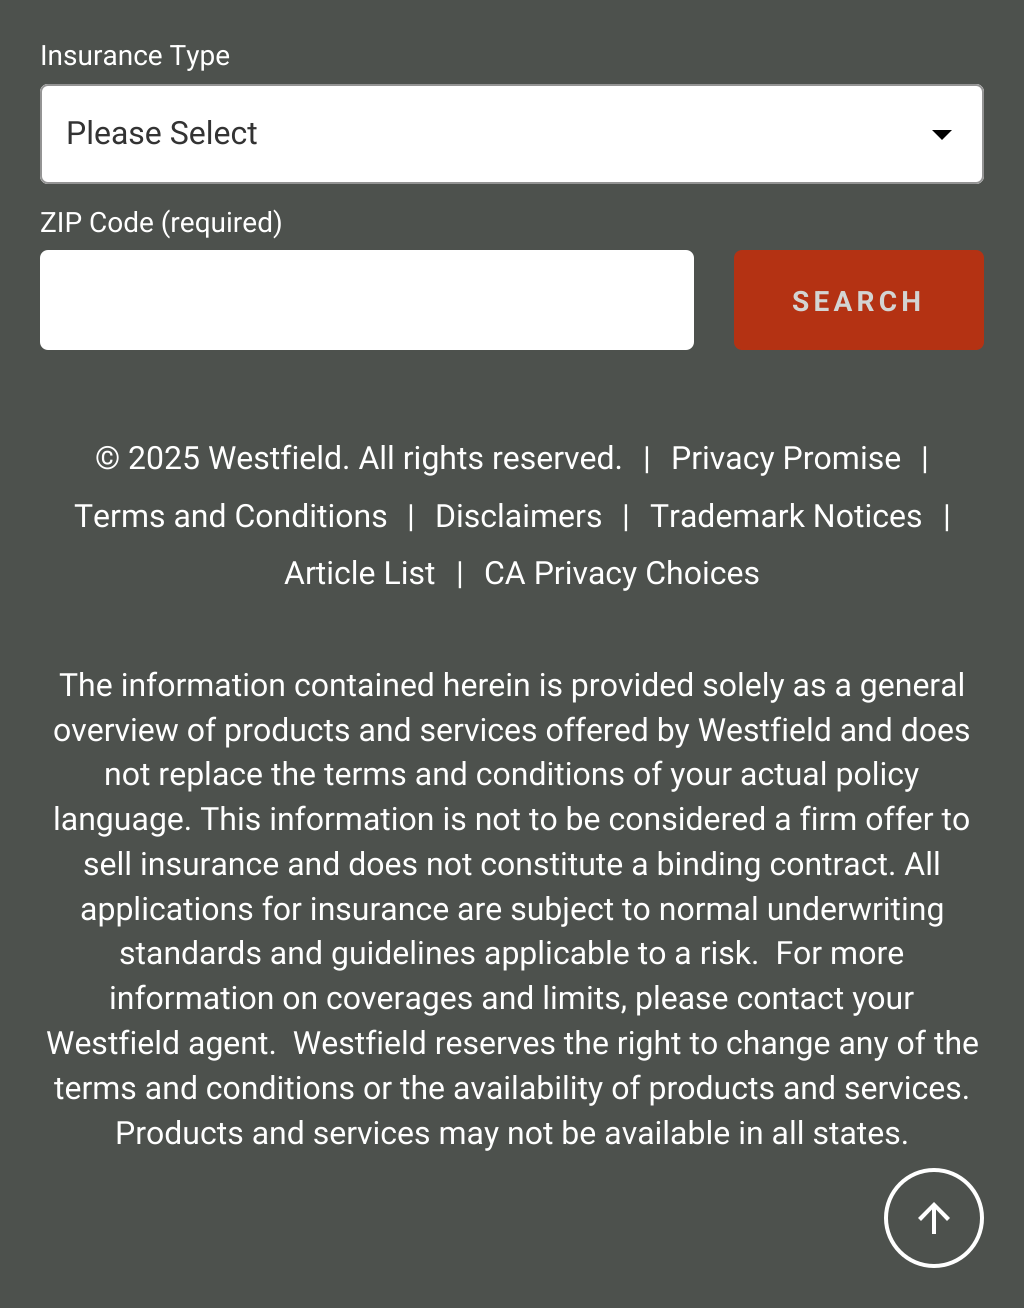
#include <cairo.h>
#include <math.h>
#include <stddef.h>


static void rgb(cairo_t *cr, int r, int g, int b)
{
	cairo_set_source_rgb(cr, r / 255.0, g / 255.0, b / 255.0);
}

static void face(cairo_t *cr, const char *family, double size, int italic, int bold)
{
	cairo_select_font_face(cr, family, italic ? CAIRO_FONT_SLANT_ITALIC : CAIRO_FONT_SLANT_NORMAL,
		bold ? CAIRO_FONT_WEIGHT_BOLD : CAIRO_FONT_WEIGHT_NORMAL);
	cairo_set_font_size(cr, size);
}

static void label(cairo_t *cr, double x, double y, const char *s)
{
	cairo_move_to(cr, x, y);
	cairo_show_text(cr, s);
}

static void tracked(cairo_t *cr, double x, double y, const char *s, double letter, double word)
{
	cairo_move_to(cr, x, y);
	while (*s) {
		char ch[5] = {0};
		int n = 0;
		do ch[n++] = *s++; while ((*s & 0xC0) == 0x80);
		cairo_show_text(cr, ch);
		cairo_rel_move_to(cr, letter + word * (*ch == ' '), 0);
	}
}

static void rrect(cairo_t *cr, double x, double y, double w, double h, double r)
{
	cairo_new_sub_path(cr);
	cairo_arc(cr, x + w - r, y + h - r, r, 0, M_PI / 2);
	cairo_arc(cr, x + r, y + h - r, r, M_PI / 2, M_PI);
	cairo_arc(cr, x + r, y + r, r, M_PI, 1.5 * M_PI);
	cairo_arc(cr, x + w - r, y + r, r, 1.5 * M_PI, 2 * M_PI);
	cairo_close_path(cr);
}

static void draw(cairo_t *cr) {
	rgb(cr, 77, 81, 77);
	cairo_paint(cr);
	face(cr, "Roboto", 28, 0, 0);
	rgb(cr, 255, 255, 255);
	label(cr, 40, 65, "Insurance Type");
	rrect(cr, 40, 84, 944, 100, 8);
	cairo_fill(cr);
	rgb(cr, 0, 0, 0);
	cairo_new_path(cr);
	cairo_move_to(cr, 932, 130);
	cairo_line_to(cr, 942, 140);
	cairo_line_to(cr, 952, 130);
	cairo_close_path(cr);
	cairo_fill(cr);
	rrect(cr, 41, 85, 942, 98, 7);
	rgb(cr, 148, 148, 148);
	cairo_stroke(cr);
	face(cr, "Roboto", 32, 0, 0);
	rgb(cr, 51, 51, 51);
	label(cr, 66, 144, "Please Select");
	face(cr, "Roboto", 28, 0, 0);
	rgb(cr, 255, 255, 255);
	label(cr, 40, 232, "ZIP Code (required)");
	rrect(cr, 40, 250, 654, 100, 8);
	cairo_fill(cr);
	rgb(cr, 180, 50, 19);
	rrect(cr, 734, 250, 250, 100, 8);
	cairo_fill(cr);
	face(cr, "Roboto", 28, 0, 1);
	rgb(cr, 211, 212, 211);
	tracked(cr, 792, 311, "SEARCH", 4.25, 0);
	face(cr, "Roboto", 32, 0, 0);
	rgb(cr, 255, 255, 255);
	label(cr, 95, 469, "© 2025 Westfield. All rights reserved.");
	label(cr, 643, 469, "|");
	label(cr, 671, 469, "Privacy Promise");
	label(cr, 921, 469, "|");
	label(cr, 74, 527, "Terms and Conditions");
	label(cr, 407, 527, "|");
	label(cr, 435, 527, "Disclaimers");
	label(cr, 622, 527, "|");
	label(cr, 650, 527, "Trademark Notices");
	label(cr, 943, 527, "|");
	label(cr, 284, 584, "Article List");
	label(cr, 456, 584, "|");
	label(cr, 484, 584, "CA Privacy Choices");
	label(cr, 59, 696, "The information contained herein is provided solely as a general");
	label(cr, 53, 741, "overview of products and services offered by Westfield and does");
	label(cr, 104, 785, "not replace the terms and conditions of your actual policy");
	label(cr, 53, 830, "language. This information is not to be considered a firm offer to");
	label(cr, 83, 875, "sell insurance and does not constitute a binding contract. All");
	label(cr, 80, 920, "applications for insurance are subject to normal underwriting");
	label(cr, 119, 964, "standards and guidelines applicable to a risk.  For more");
	label(cr, 109, 1009, "information on coverages and limits, please contact your");
	label(cr, 46, 1054, "Westfield agent.  Westfield reserves the right to change any of the");
	label(cr, 54, 1099, "terms and conditions or the availability of products and services.");
	label(cr, 115, 1144, "Products and services may not be available in all states.");
	cairo_new_path(cr);
	cairo_arc(cr, 934, 1218, 48, 0, 2 * M_PI);
	cairo_set_line_width(cr, 4);
	cairo_stroke(cr);
	cairo_new_path(cr);
	cairo_move_to(cr, 918, 1218);
	cairo_line_to(cr, 921, 1221);
	cairo_line_to(cr, 932, 1209.5);
	cairo_line_to(cr, 932, 1234);
	cairo_line_to(cr, 936, 1234);
	cairo_line_to(cr, 936, 1209.5);
	cairo_line_to(cr, 947, 1221);
	cairo_line_to(cr, 950, 1218);
	cairo_line_to(cr, 934, 1202);
	cairo_close_path(cr);
	cairo_fill(cr);
}

int main(void) {
	cairo_surface_t *surface = cairo_image_surface_create(CAIRO_FORMAT_RGB24, 1024, 1308);
	cairo_t *cr = cairo_create(surface);
	cairo_font_options_t *options = cairo_font_options_create();
	cairo_font_options_set_hint_metrics(options, CAIRO_HINT_METRICS_OFF);
	cairo_font_options_set_hint_style(options, CAIRO_HINT_STYLE_NONE);
	cairo_set_font_options(cr, options);
	cairo_set_miter_limit(cr, 4);
	draw(cr);
	cairo_surface_write_to_png(surface, "render.png");
	cairo_font_options_destroy(options);
	cairo_destroy(cr);
	cairo_surface_destroy(surface);
	return 0;
}
